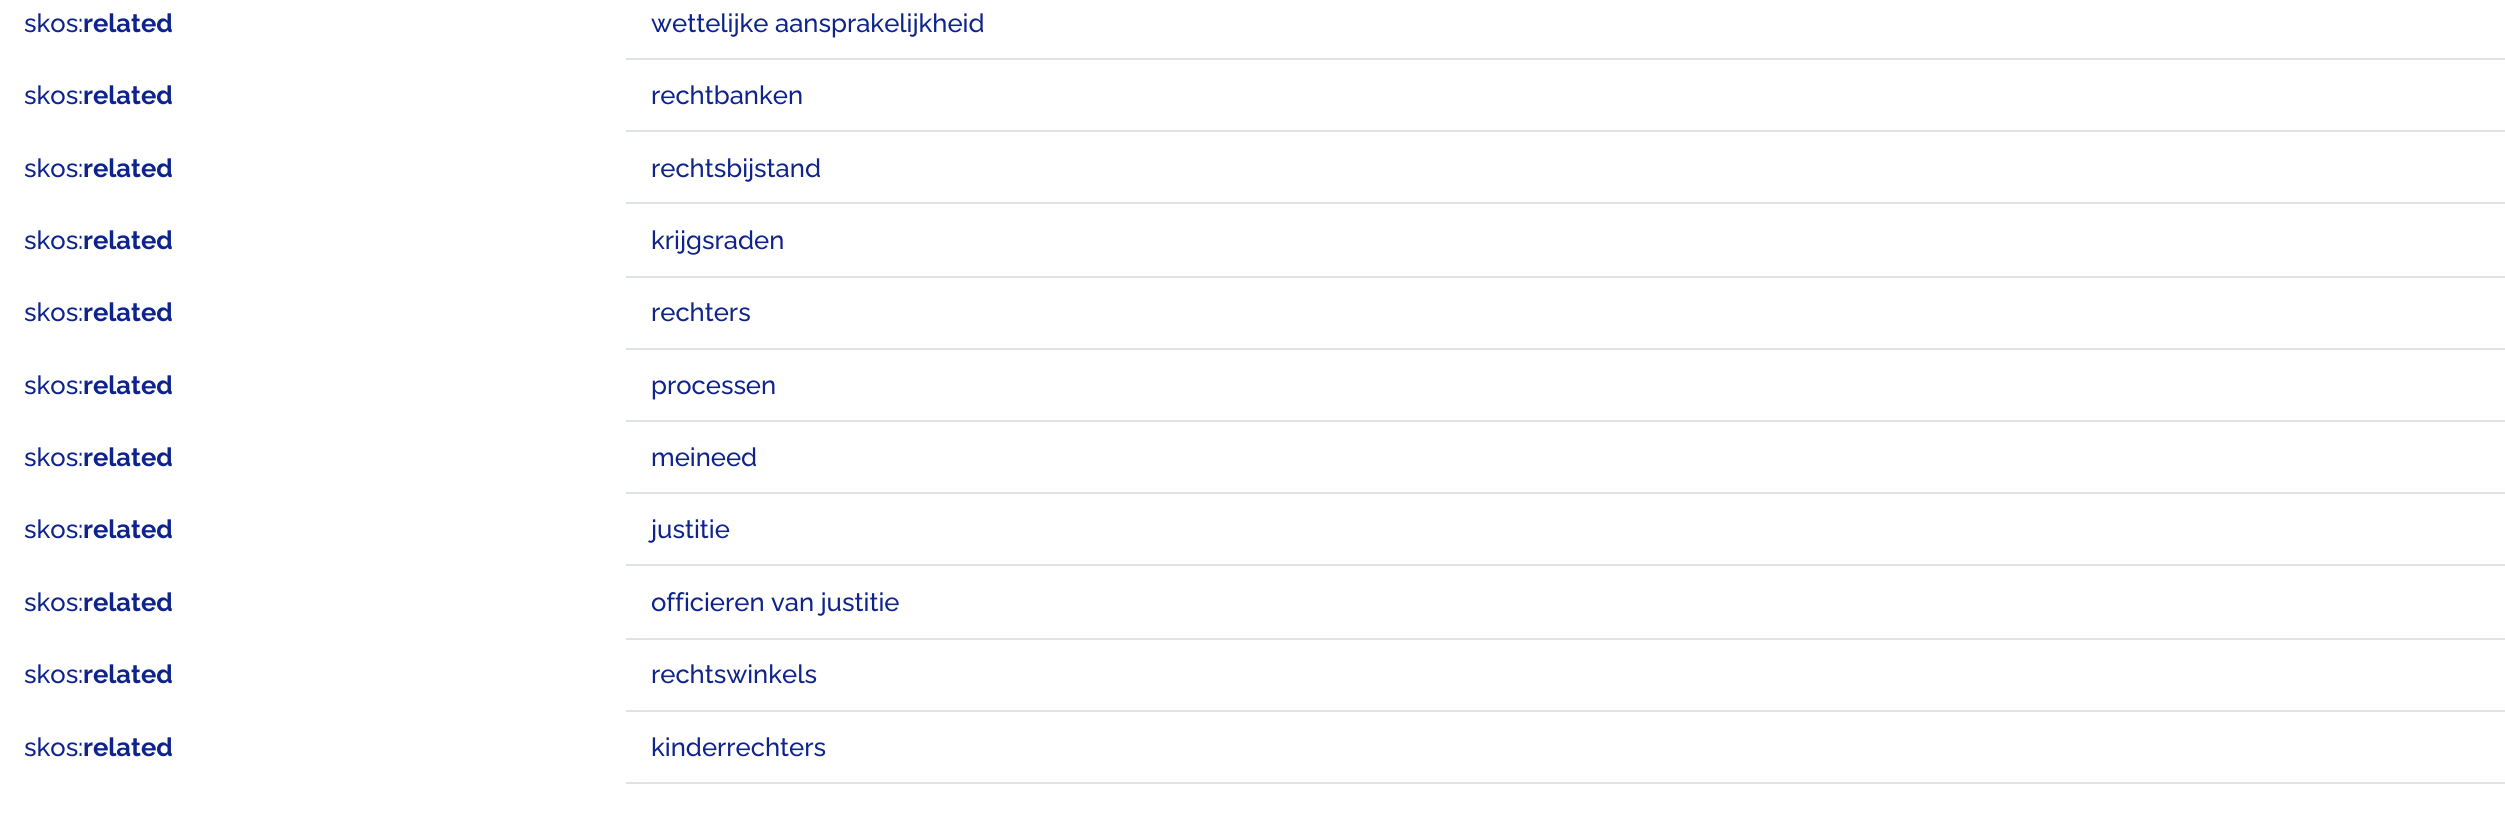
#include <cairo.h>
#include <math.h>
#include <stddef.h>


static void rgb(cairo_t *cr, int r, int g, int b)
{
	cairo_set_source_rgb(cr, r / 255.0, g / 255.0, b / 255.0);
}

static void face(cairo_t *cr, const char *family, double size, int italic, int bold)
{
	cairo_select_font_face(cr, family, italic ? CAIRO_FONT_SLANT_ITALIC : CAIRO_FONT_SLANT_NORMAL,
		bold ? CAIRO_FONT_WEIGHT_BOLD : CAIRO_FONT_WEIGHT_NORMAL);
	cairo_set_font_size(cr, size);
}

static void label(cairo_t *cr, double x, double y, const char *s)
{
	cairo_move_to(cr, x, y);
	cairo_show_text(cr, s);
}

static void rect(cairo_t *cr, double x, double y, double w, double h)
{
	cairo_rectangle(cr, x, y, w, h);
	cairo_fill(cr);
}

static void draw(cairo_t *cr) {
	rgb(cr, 255, 255, 255);
	cairo_paint(cr);
	face(cr, "Raleway Medium", 25.6, 0, 0);
	rgb(cr, 15, 35, 140);
	label(cr, 24, 32, "skos:");
	face(cr, "Raleway", 25.6, 0, 1);
	label(cr, 83, 32, "related");
	rgb(cr, 222, 226, 230);
	rect(cr, 626, 58, 1879, 2);
	face(cr, "Raleway Medium", 25.6, 0, 0);
	rgb(cr, 15, 35, 140);
	label(cr, 651, 32, "wettelijke aansprakelijkheid");
	label(cr, 24, 104, "skos:");
	face(cr, "Raleway", 25.6, 0, 1);
	label(cr, 83, 104, "related");
	rgb(cr, 222, 226, 230);
	rect(cr, 626, 130, 1879, 2);
	face(cr, "Raleway Medium", 25.6, 0, 0);
	rgb(cr, 15, 35, 140);
	label(cr, 651, 104, "rechtbanken");
	label(cr, 24, 177, "skos:");
	face(cr, "Raleway", 25.6, 0, 1);
	label(cr, 83, 177, "related");
	rgb(cr, 222, 226, 230);
	rect(cr, 626, 202, 1879, 2);
	face(cr, "Raleway Medium", 25.6, 0, 0);
	rgb(cr, 15, 35, 140);
	label(cr, 651, 177, "rechtsbijstand");
	label(cr, 24, 249, "skos:");
	face(cr, "Raleway", 25.6, 0, 1);
	label(cr, 83, 249, "related");
	rgb(cr, 222, 226, 230);
	rect(cr, 626, 276, 1879, 2);
	face(cr, "Raleway Medium", 25.6, 0, 0);
	rgb(cr, 15, 35, 140);
	label(cr, 651, 249, "krijgsraden");
	label(cr, 24, 321, "skos:");
	face(cr, "Raleway", 25.6, 0, 1);
	label(cr, 83, 321, "related");
	rgb(cr, 222, 226, 230);
	rect(cr, 626, 348, 1879, 2);
	face(cr, "Raleway Medium", 25.6, 0, 0);
	rgb(cr, 15, 35, 140);
	label(cr, 651, 321, "rechters");
	label(cr, 24, 394, "skos:");
	face(cr, "Raleway", 25.6, 0, 1);
	label(cr, 83, 394, "related");
	rgb(cr, 222, 226, 230);
	rect(cr, 626, 420, 1879, 2);
	face(cr, "Raleway Medium", 25.6, 0, 0);
	rgb(cr, 15, 35, 140);
	label(cr, 651, 394, "processen");
	label(cr, 24, 466, "skos:");
	face(cr, "Raleway", 25.6, 0, 1);
	label(cr, 83, 466, "related");
	rgb(cr, 222, 226, 230);
	rect(cr, 626, 492, 1879, 2);
	face(cr, "Raleway Medium", 25.6, 0, 0);
	rgb(cr, 15, 35, 140);
	label(cr, 651, 466, "meineed");
	label(cr, 24, 538, "skos:");
	face(cr, "Raleway", 25.6, 0, 1);
	label(cr, 83, 538, "related");
	rgb(cr, 222, 226, 230);
	rect(cr, 626, 564, 1879, 2);
	face(cr, "Raleway Medium", 25.6, 0, 0);
	rgb(cr, 15, 35, 140);
	label(cr, 651, 538, "justitie");
	label(cr, 24, 611, "skos:");
	face(cr, "Raleway", 25.6, 0, 1);
	label(cr, 83, 611, "related");
	rgb(cr, 222, 226, 230);
	rect(cr, 626, 638, 1879, 2);
	face(cr, "Raleway Medium", 25.6, 0, 0);
	rgb(cr, 15, 35, 140);
	label(cr, 651, 611, "officieren van justitie");
	label(cr, 24, 683, "skos:");
	face(cr, "Raleway", 25.6, 0, 1);
	label(cr, 83, 683, "related");
	rgb(cr, 222, 226, 230);
	rect(cr, 626, 710, 1879, 2);
	face(cr, "Raleway Medium", 25.6, 0, 0);
	rgb(cr, 15, 35, 140);
	label(cr, 651, 683, "rechtswinkels");
	label(cr, 24, 756, "skos:");
	face(cr, "Raleway", 25.6, 0, 1);
	label(cr, 83, 756, "related");
	rgb(cr, 222, 226, 230);
	rect(cr, 626, 782, 1879, 2);
	face(cr, "Raleway Medium", 25.6, 0, 0);
	rgb(cr, 15, 35, 140);
	label(cr, 651, 756, "kinderrechters");
}

int main(void) {
	cairo_surface_t *surface = cairo_image_surface_create(CAIRO_FORMAT_RGB24, 2505, 814);
	cairo_t *cr = cairo_create(surface);
	cairo_font_options_t *options = cairo_font_options_create();
	cairo_font_options_set_hint_metrics(options, CAIRO_HINT_METRICS_OFF);
	cairo_font_options_set_hint_style(options, CAIRO_HINT_STYLE_NONE);
	cairo_set_font_options(cr, options);
	cairo_set_miter_limit(cr, 4);
	draw(cr);
	cairo_surface_write_to_png(surface, "render.png");
	cairo_font_options_destroy(options);
	cairo_destroy(cr);
	cairo_surface_destroy(surface);
	return 0;
}
